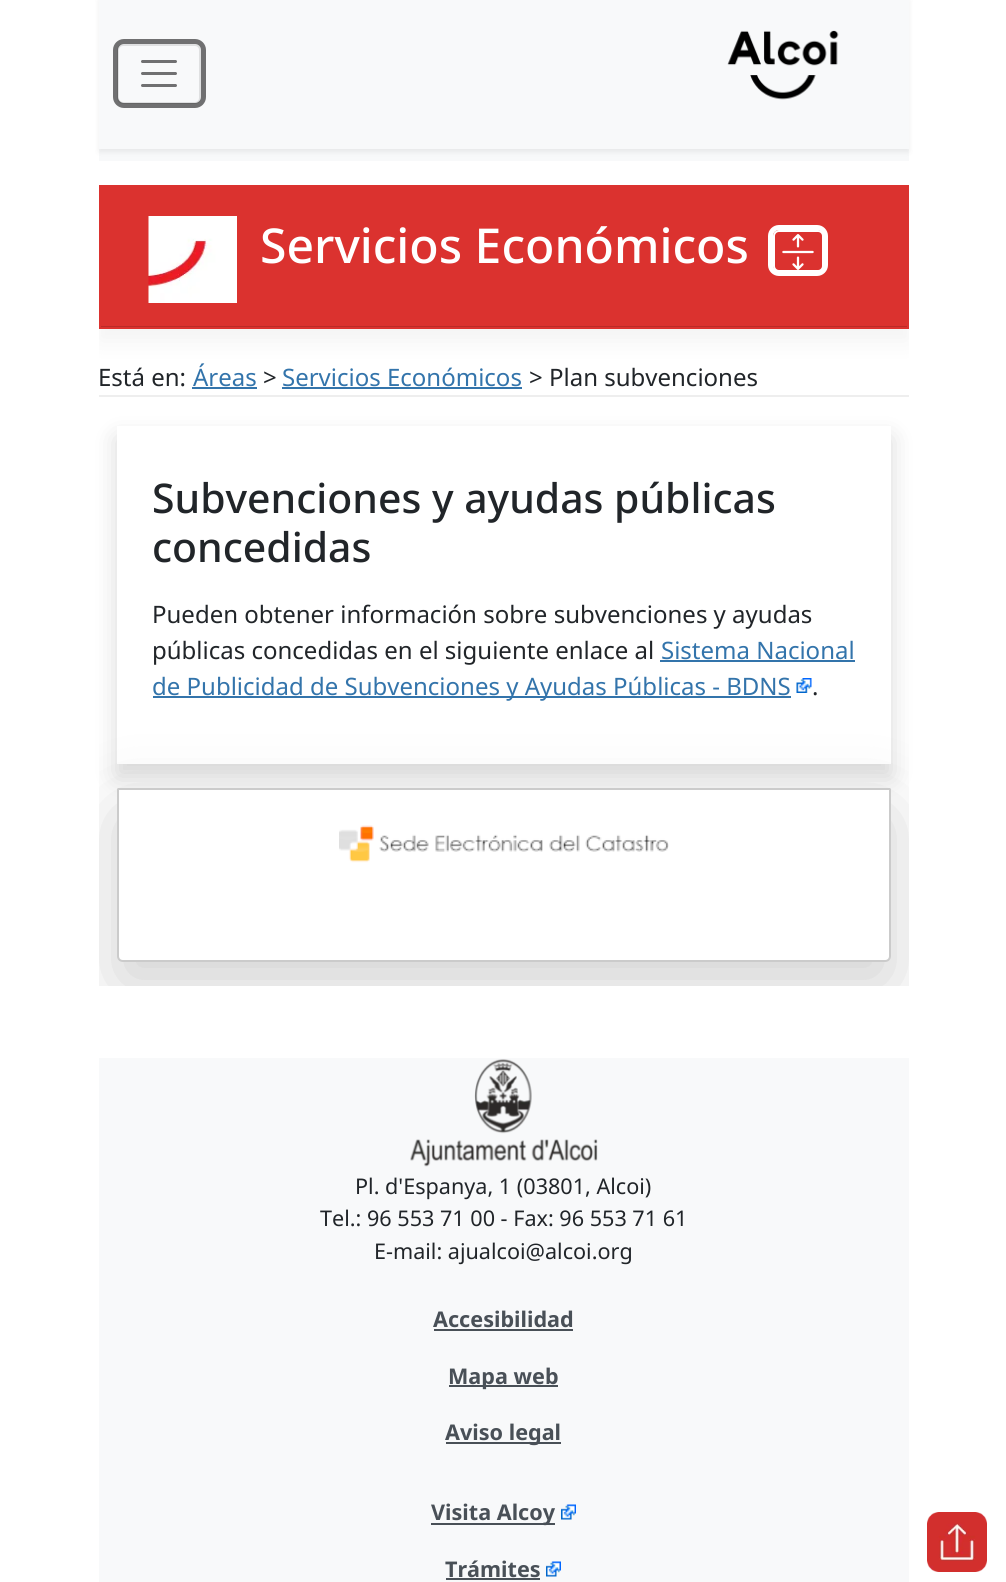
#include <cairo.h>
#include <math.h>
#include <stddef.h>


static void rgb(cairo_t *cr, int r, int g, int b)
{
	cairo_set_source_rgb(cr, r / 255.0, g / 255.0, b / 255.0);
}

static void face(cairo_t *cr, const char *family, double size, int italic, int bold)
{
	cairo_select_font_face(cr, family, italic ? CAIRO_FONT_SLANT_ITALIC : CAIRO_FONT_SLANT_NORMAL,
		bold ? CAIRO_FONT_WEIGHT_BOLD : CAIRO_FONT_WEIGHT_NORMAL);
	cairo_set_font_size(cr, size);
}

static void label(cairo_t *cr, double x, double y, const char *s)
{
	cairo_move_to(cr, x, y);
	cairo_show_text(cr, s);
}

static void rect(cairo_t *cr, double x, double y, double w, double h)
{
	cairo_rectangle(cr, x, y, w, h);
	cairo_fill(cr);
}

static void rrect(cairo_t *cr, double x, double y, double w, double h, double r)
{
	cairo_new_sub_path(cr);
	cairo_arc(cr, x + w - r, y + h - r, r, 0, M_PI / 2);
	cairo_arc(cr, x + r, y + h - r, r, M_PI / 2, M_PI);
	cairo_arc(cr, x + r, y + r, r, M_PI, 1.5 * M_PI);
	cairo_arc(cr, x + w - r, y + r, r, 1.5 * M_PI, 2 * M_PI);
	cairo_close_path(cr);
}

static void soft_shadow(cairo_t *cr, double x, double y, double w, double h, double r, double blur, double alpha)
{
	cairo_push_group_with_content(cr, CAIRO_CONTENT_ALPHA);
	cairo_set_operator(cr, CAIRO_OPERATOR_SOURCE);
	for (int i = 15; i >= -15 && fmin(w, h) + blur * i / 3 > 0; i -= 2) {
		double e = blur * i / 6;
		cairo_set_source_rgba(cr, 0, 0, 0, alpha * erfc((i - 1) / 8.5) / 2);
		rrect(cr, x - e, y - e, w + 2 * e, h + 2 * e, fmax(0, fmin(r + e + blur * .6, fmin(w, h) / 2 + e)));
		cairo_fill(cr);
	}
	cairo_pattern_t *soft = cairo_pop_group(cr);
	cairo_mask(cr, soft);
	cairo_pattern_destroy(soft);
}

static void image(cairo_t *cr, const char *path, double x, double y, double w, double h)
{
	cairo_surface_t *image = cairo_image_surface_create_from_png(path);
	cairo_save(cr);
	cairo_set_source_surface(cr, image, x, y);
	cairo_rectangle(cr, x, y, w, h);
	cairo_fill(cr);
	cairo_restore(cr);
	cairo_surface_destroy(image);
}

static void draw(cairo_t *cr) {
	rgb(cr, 255, 255, 255);
	cairo_paint(cr);
	rgb(cr, 248, 249, 250);
	rect(cr, 99, 0, 810, 161);
	cairo_save(cr);
	cairo_set_fill_rule(cr, CAIRO_FILL_RULE_EVEN_ODD);
	cairo_new_path(cr);
	cairo_move_to(cr, 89, 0);
	cairo_line_to(cr, 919, 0);
	cairo_line_to(cr, 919, 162);
	cairo_line_to(cr, 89, 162);
	cairo_close_path(cr);
	cairo_move_to(cr, 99, -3);
	cairo_line_to(cr, 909, -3);
	cairo_line_to(cr, 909, 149);
	cairo_line_to(cr, 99, 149);
	cairo_close_path(cr);
	cairo_clip(cr);
	rgb(cr, 0, 0, 0);
	soft_shadow(cr, 99, 0, 810, 152, 0, 3, 0.07);
	cairo_restore(cr);
	rrect(cr, 118, 45, 82, 58, 5);
	rgb(cr, 223, 224, 225);
	cairo_stroke(cr);
	cairo_new_path(cr);
	cairo_move_to(cr, 142.5, 61.5);
	cairo_line_to(cr, 175.5, 61.5);
	cairo_move_to(cr, 142.5, 73.5);
	cairo_line_to(cr, 175.5, 73.5);
	cairo_move_to(cr, 142.5, 85.5);
	cairo_line_to(cr, 175.5, 85.5);
	rgb(cr, 112, 112, 113);
	cairo_set_line_width(cr, 3);
	cairo_set_line_cap(cr, CAIRO_LINE_CAP_ROUND);
	cairo_stroke(cr);
	rrect(cr, 115.5, 41.5, 88, 64, 8.5);
	cairo_set_source_rgba(cr, 0, 0, 0, 0.55);
	cairo_set_line_width(cr, 5);
	cairo_set_line_cap(cr, CAIRO_LINE_CAP_BUTT);
	cairo_stroke(cr);
	image(cr, "image0.png", 727, 30, 112, 70);
	cairo_save(cr);
	cairo_rectangle(cr, 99, 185, 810, 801);
	cairo_clip(cr);
	rgb(cr, 0, 0, 0);
	soft_shadow(cr, 99, 197, 810, 144, 0, 12, 0.05);
	cairo_restore(cr);
	rgb(cr, 219, 50, 47);
	rect(cr, 101, 187, 806, 139);
	rgb(cr, 186, 43, 40);
	rect(cr, 101, 326, 807, 1);
	cairo_rectangle(cr, 100, 186, 808, 142);
	rgb(cr, 219, 50, 47);
	cairo_set_line_width(cr, 2);
	cairo_stroke(cr);
	image(cr, "image1.png", 148, 216, 89, 87);
	face(cr, "Noto Sans Medium", 48.1, 0, 0);
	rgb(cr, 255, 255, 255);
	label(cr, 260, 263, "Servicios Económicos");
	rrect(cr, 774, 231, 49, 40, 5);
	cairo_stroke(cr);
	rrect(cr, 770.5, 227.5, 55, 46, 8.5);
	cairo_set_line_width(cr, 5);
	cairo_stroke(cr);
	image(cr, "image2.png", 782, 234, 32, 36);
	rgb(cr, 238, 238, 238);
	rect(cr, 99, 395, 810, 2);
	face(cr, "Noto Sans", 24, 0, 0);
	rgb(cr, 33, 37, 41);
	label(cr, 98, 386, "Está en:");
	rgb(cr, 51, 116, 171);
	label(cr, 193, 386, "Áreas");
	rect(cr, 192, 387, 65, 2);
	rgb(cr, 33, 37, 41);
	label(cr, 263, 386, ">");
	rgb(cr, 51, 116, 171);
	label(cr, 282, 386, "Servicios Económicos");
	rect(cr, 282, 387, 240, 2);
	rgb(cr, 33, 37, 41);
	label(cr, 529, 386, "> Plan subvenciones");
	cairo_save(cr);
	cairo_set_fill_rule(cr, CAIRO_FILL_RULE_EVEN_ODD);
	cairo_new_path(cr);
	cairo_move_to(cr, 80, 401);
	cairo_line_to(cr, 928, 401);
	cairo_line_to(cr, 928, 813);
	cairo_line_to(cr, 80, 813);
	cairo_close_path(cr);
	cairo_move_to(cr, 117, 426);
	cairo_line_to(cr, 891, 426);
	cairo_line_to(cr, 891, 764);
	cairo_line_to(cr, 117, 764);
	cairo_close_path(cr);
	cairo_clip(cr);
	rgb(cr, 0, 0, 0);
	soft_shadow(cr, 117, 438, 774, 338, 0, 12, 0.15);
	cairo_restore(cr);
	face(cr, "Noto Sans Medium", 40.9, 0, 0);
	label(cr, 152, 513, "Subvenciones y ayudas públicas");
	label(cr, 152, 562, "concedidas");
	face(cr, "Noto Sans", 24, 0, 0);
	label(cr, 152, 623, "Pueden obtener información sobre subvenciones y ayudas");
	label(cr, 152, 659, "públicas concedidas en el siguiente enlace al");
	rgb(cr, 51, 116, 171);
	label(cr, 661, 659, "Sistema Nacional");
	rect(cr, 660, 660, 195, 2);
	rect(cr, 153, 696, 638, 2);
	label(cr, 152, 695, "de Publicidad de Subvenciones y Ayudas Públicas - BDNS");
	image(cr, "image3.png", 796, 678, 16, 15);
	rgb(cr, 33, 37, 41);
	label(cr, 812, 695, ".");
	cairo_save(cr);
	cairo_rectangle(cr, 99, 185, 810, 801);
	cairo_clip(cr);
	rgb(cr, 0, 0, 0);
	soft_shadow(cr, 117, 812, 774, 174, 6, 36, 0.18);
	cairo_restore(cr);
	rgb(cr, 255, 255, 255);
	cairo_new_path(cr);
	cairo_move_to(cr, 118.5, 789);
	cairo_line_to(cr, 889.5, 789);
	cairo_curve_to(cr, 890, 789, 890, 789, 890, 789.5);
	cairo_line_to(cr, 890, 956);
	cairo_curve_to(cr, 890, 959, 888, 961, 885, 961);
	cairo_line_to(cr, 123, 961);
	cairo_curve_to(cr, 120, 961, 118, 959, 118, 956);
	cairo_line_to(cr, 118, 789.5);
	cairo_curve_to(cr, 118, 789, 118, 789, 118.5, 789);
	cairo_close_path(cr);
	cairo_fill_preserve(cr);
	rgb(cr, 203, 203, 203);
	cairo_set_line_width(cr, 2);
	cairo_stroke(cr);
	image(cr, "image4.png", 339, 825, 330, 38);
	rgb(cr, 248, 249, 250);
	rect(cr, 99, 1058, 810, 524);
	image(cr, "image5.png", 410, 1059, 188, 108);
	face(cr, "Noto Sans", 21.6, 0, 0);
	rgb(cr, 33, 37, 41);
	label(cr, 355, 1194, "Pl. d'Espanya, 1 (03801, Alcoi)");
	label(cr, 320, 1226, "Tel.: 96 553 71 00 - Fax: 96 553 71 61");
	label(cr, 374, 1259, "E-mail: ajualcoi@alcoi.org");
	face(cr, "Noto Sans", 21.6, 0, 1);
	rgb(cr, 73, 80, 87);
	label(cr, 433, 1327, "Accesibilidad");
	rect(cr, 434, 1329, 139, 2);
	rect(cr, 449, 1385, 109, 2);
	label(cr, 448, 1384, "Mapa web");
	rect(cr, 446, 1442, 115, 2);
	label(cr, 445, 1440, "Aviso legal");
	rect(cr, 431, 1523, 124, 2);
	label(cr, 431, 1520, "Visita Alcoy");
	image(cr, "image6.png", 561, 1504, 15, 16);
	label(cr, 445, 1577, "Trámites");
	rect(cr, 446, 1578, 94, 2);
	image(cr, "image7.png", 546, 1561, 15, 16);
	image(cr, "image8.png", 927, 1512, 60, 60);
}

int main(void) {
	cairo_surface_t *surface = cairo_image_surface_create(CAIRO_FORMAT_RGB24, 1006, 1582);
	cairo_t *cr = cairo_create(surface);
	cairo_font_options_t *options = cairo_font_options_create();
	cairo_font_options_set_hint_metrics(options, CAIRO_HINT_METRICS_OFF);
	cairo_font_options_set_hint_style(options, CAIRO_HINT_STYLE_NONE);
	cairo_set_font_options(cr, options);
	cairo_set_miter_limit(cr, 4);
	draw(cr);
	cairo_surface_write_to_png(surface, "render.png");
	cairo_font_options_destroy(options);
	cairo_destroy(cr);
	cairo_surface_destroy(surface);
	return 0;
}
